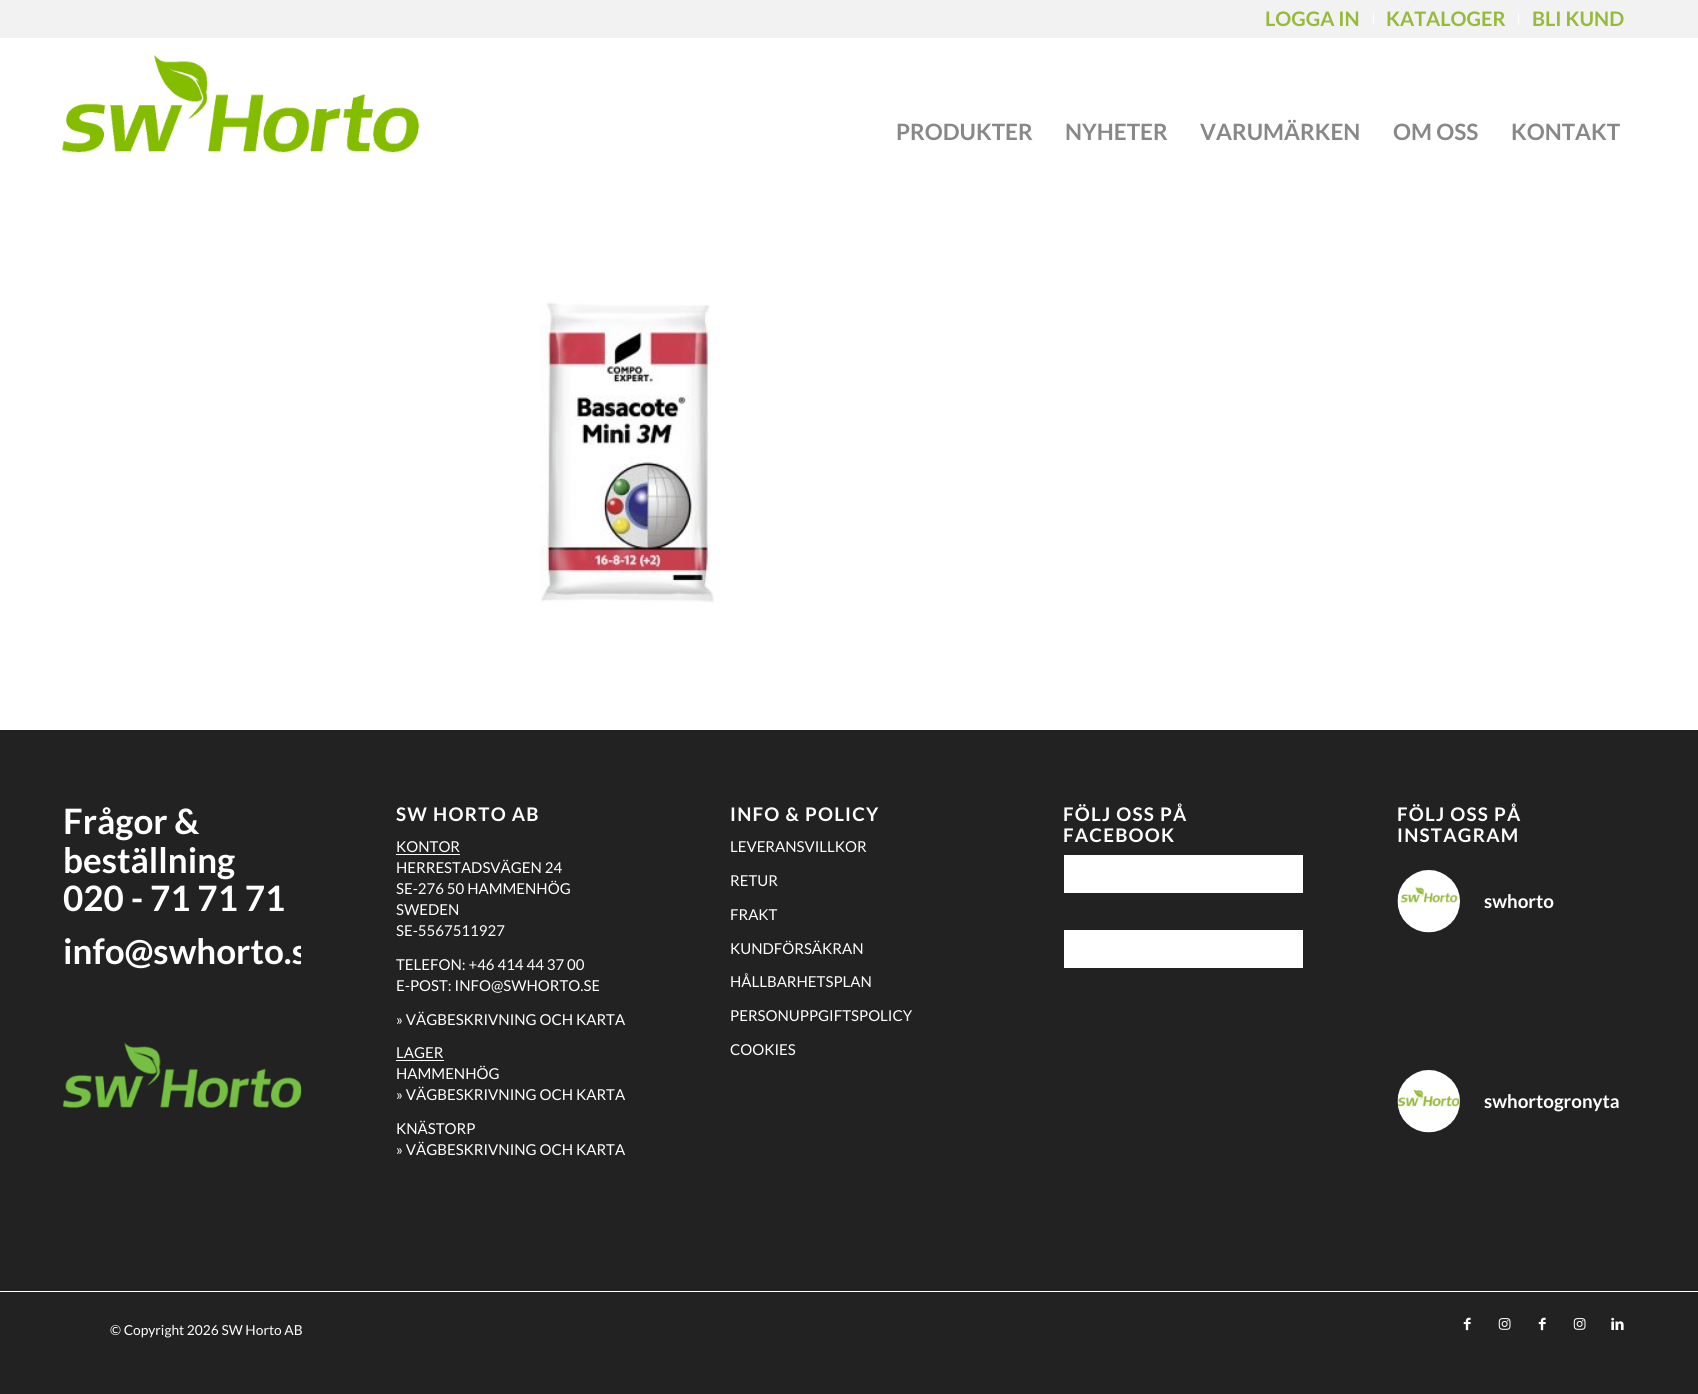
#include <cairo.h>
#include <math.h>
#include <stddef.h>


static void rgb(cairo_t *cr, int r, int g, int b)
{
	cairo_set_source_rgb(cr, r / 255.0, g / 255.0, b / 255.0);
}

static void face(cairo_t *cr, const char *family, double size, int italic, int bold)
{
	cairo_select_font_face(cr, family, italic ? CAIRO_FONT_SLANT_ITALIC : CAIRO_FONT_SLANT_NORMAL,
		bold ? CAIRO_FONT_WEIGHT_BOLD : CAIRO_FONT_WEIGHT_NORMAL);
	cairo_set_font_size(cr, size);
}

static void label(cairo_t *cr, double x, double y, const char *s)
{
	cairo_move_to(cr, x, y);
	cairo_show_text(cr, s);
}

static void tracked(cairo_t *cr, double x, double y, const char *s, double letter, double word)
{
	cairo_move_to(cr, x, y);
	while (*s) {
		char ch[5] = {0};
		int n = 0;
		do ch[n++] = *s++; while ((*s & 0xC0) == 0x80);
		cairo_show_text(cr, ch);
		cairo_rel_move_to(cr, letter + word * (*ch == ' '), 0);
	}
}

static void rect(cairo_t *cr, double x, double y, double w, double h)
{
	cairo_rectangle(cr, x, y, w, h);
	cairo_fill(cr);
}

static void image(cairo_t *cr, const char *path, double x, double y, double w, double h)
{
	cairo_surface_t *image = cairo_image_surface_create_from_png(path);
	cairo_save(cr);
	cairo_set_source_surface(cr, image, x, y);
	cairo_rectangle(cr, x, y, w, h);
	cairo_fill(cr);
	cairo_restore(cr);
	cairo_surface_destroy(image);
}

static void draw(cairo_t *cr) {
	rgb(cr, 34, 34, 34);
	cairo_paint(cr);
	rgb(cr, 255, 255, 255);
	rect(cr, 0, 38, 1698, 692);
	rgb(cr, 242, 242, 242);
	rect(cr, 0, 0, 1698, 38);
	rgb(cr, 255, 255, 255);
	rect(cr, 1373, 13, 1, 12);
	face(cr, "Lato", 20, 0, 1);
	rgb(cr, 150, 186, 58);
	label(cr, 1265, 26, "LOGGA IN");
	rgb(cr, 255, 255, 255);
	rect(cr, 1518, 13, 1, 12);
	rgb(cr, 150, 186, 58);
	label(cr, 1386, 26, "KATALOGER");
	label(cr, 1532, 26, "BLI KUND");
	image(cr, "image0.png", 62, 55, 357, 98);
	face(cr, "Lato", 22.5, 0, 1);
	rgb(cr, 136, 136, 136);
	label(cr, 896, 140, "PRODUKTER");
	label(cr, 1065, 140, "NYHETER");
	label(cr, 1200, 140, "VARUMÄRKEN");
	label(cr, 1393, 140, "OM OSS");
	label(cr, 1511, 140, "KONTAKT");
	image(cr, "image1.png", 539, 302, 181, 301);
	face(cr, "Lato", 35, 0, 1);
	rgb(cr, 255, 255, 255);
	label(cr, 63, 834, "Frågor &");
	label(cr, 63, 873, "beställning");
	label(cr, 63, 911, "020 - 71 71 71");
	cairo_save(cr);
	cairo_rectangle(cr, 63, 788, 238, 195);
	cairo_clip(cr);
	label(cr, 63, 964, "info@swhorto.s");
	cairo_restore(cr);
	image(cr, "image2.png", 62, 1042, 240, 66);
	face(cr, "Lato", 18.75, 0, 1);
	tracked(cr, 396, 821, "SW HORTO AB", 1.25, 0);
	face(cr, "Lato", 15, 0, 0);
	label(cr, 396, 852, "KONTOR");
	rect(cr, 396, 854, 64, 1);
	label(cr, 396, 873, "HERRESTADSVÄGEN 24");
	label(cr, 396, 894, "SE-276 50 HAMMENHÖG");
	label(cr, 396, 915, "SWEDEN");
	label(cr, 396, 936, "SE-5567511927");
	label(cr, 396, 970, "TELEFON: +46 414 44 37 00");
	label(cr, 396, 991, "E-POST: INFO@SWHORTO.SE");
	label(cr, 396, 1025, "» VÄGBESKRIVNING OCH KARTA");
	label(cr, 396, 1058, "LAGER");
	rect(cr, 396, 1060, 48, 1);
	label(cr, 396, 1079, "HAMMENHÖG");
	label(cr, 396, 1100, "» VÄGBESKRIVNING OCH KARTA");
	label(cr, 396, 1134, "KNÄSTORP");
	label(cr, 396, 1155, "» VÄGBESKRIVNING OCH KARTA");
	face(cr, "Lato", 18.75, 0, 1);
	tracked(cr, 730, 821, "INFO & POLICY", 1.25, 0);
	face(cr, "Lato", 15, 0, 0);
	label(cr, 730, 852, "LEVERANSVILLKOR");
	label(cr, 730, 886, "RETUR");
	label(cr, 730, 920, "FRAKT");
	label(cr, 730, 954, "KUNDFÖRSÄKRAN");
	label(cr, 730, 987, "HÅLLBARHETSPLAN");
	label(cr, 730, 1021, "PERSONUPPGIFTSPOLICY");
	label(cr, 730, 1055, "COOKIES");
	face(cr, "Lato", 18.75, 0, 1);
	tracked(cr, 1063, 821, "FÖLJ OSS PÅ", 1.25, 0);
	tracked(cr, 1063, 842, "FACEBOOK", 1.25, 0);
	rect(cr, 1064, 855, 239, 38);
	rect(cr, 1064, 930, 239, 38);
	tracked(cr, 1397, 821, "FÖLJ OSS PÅ", 1.25, 0);
	tracked(cr, 1397, 842, "INSTAGRAM", 1.25, 0);
	image(cr, "image3.png", 1397, 870, 63, 63);
	label(cr, 1484, 908, "swhorto");
	image(cr, "image4.png", 1397, 1070, 63, 63);
	label(cr, 1484, 1108, "swhortogronyta");
	rect(cr, 0, 1291, 1698, 1);
	face(cr, "Lato", 13.75, 0, 0);
	label(cr, 110, 1335, "© Copyright 2026 SW Horto AB");
	image(cr, "image5.png", 1463, 1317, 8, 14);
	image(cr, "image6.png", 1498, 1318, 13, 12);
	image(cr, "image5.png", 1538, 1317, 8, 14);
	image(cr, "image6.png", 1573, 1318, 13, 12);
	image(cr, "image7.png", 1611, 1317, 13, 13);
}

int main(void) {
	cairo_surface_t *surface = cairo_image_surface_create(CAIRO_FORMAT_RGB24, 1698, 1394);
	cairo_t *cr = cairo_create(surface);
	cairo_font_options_t *options = cairo_font_options_create();
	cairo_font_options_set_hint_metrics(options, CAIRO_HINT_METRICS_OFF);
	cairo_font_options_set_hint_style(options, CAIRO_HINT_STYLE_NONE);
	cairo_set_font_options(cr, options);
	cairo_set_miter_limit(cr, 4);
	draw(cr);
	cairo_surface_write_to_png(surface, "render.png");
	cairo_font_options_destroy(options);
	cairo_destroy(cr);
	cairo_surface_destroy(surface);
	return 0;
}
